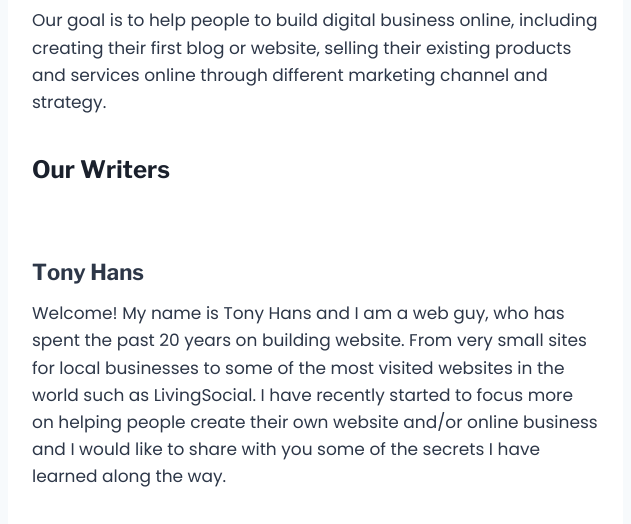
#include <cairo.h>
#include <math.h>
#include <stddef.h>


static void rgb(cairo_t *cr, int r, int g, int b)
{
	cairo_set_source_rgb(cr, r / 255.0, g / 255.0, b / 255.0);
}

static void face(cairo_t *cr, const char *family, double size, int italic, int bold)
{
	cairo_select_font_face(cr, family, italic ? CAIRO_FONT_SLANT_ITALIC : CAIRO_FONT_SLANT_NORMAL,
		bold ? CAIRO_FONT_WEIGHT_BOLD : CAIRO_FONT_WEIGHT_NORMAL);
	cairo_set_font_size(cr, size);
}

static void label(cairo_t *cr, double x, double y, const char *s)
{
	cairo_move_to(cr, x, y);
	cairo_show_text(cr, s);
}

static void rect(cairo_t *cr, double x, double y, double w, double h)
{
	cairo_rectangle(cr, x, y, w, h);
	cairo_fill(cr);
}

static void draw(cairo_t *cr) {
	rgb(cr, 247, 250, 252);
	cairo_paint(cr);
	rgb(cr, 255, 255, 255);
	rect(cr, 8, 0, 615, 524);
	face(cr, "Poppins", 17, 0, 0);
	rgb(cr, 45, 55, 72);
	label(cr, 32, 26, "Our goal is to help people to build digital business online, including");
	label(cr, 32, 54, "creating their first blog or website, selling their existing products");
	label(cr, 32, 81, "and services online through different marketing channel and");
	label(cr, 32, 108, "strategy.");
	face(cr, "Libre Franklin Thin", 24, 0, 0);
	rgb(cr, 26, 32, 44);
	label(cr, 32, 178, "Our Writers");
	face(cr, "Libre Franklin Thin", 22, 0, 0);
	rgb(cr, 45, 55, 72);
	label(cr, 32, 280, "Tony Hans");
	face(cr, "Poppins", 17, 0, 0);
	label(cr, 32, 319, "Welcome! My name is Tony Hans and I am a web guy, who has");
	label(cr, 32, 346, "spent the past 20 years on building website. From very small sites");
	label(cr, 32, 374, "for local businesses to some of the most visited websites in the");
	label(cr, 32, 401, "world such as LivingSocial. I have recently started to focus more");
	label(cr, 32, 428, "on helping people create their own website and/or online business");
	label(cr, 32, 455, "and I would like to share with you some of the secrets I have");
	label(cr, 32, 482, "learned along the way.");
}

int main(void) {
	cairo_surface_t *surface = cairo_image_surface_create(CAIRO_FORMAT_RGB24, 631, 524);
	cairo_t *cr = cairo_create(surface);
	cairo_font_options_t *options = cairo_font_options_create();
	cairo_font_options_set_hint_metrics(options, CAIRO_HINT_METRICS_OFF);
	cairo_font_options_set_hint_style(options, CAIRO_HINT_STYLE_NONE);
	cairo_set_font_options(cr, options);
	cairo_set_miter_limit(cr, 4);
	draw(cr);
	cairo_surface_write_to_png(surface, "render.png");
	cairo_font_options_destroy(options);
	cairo_destroy(cr);
	cairo_surface_destroy(surface);
	return 0;
}
